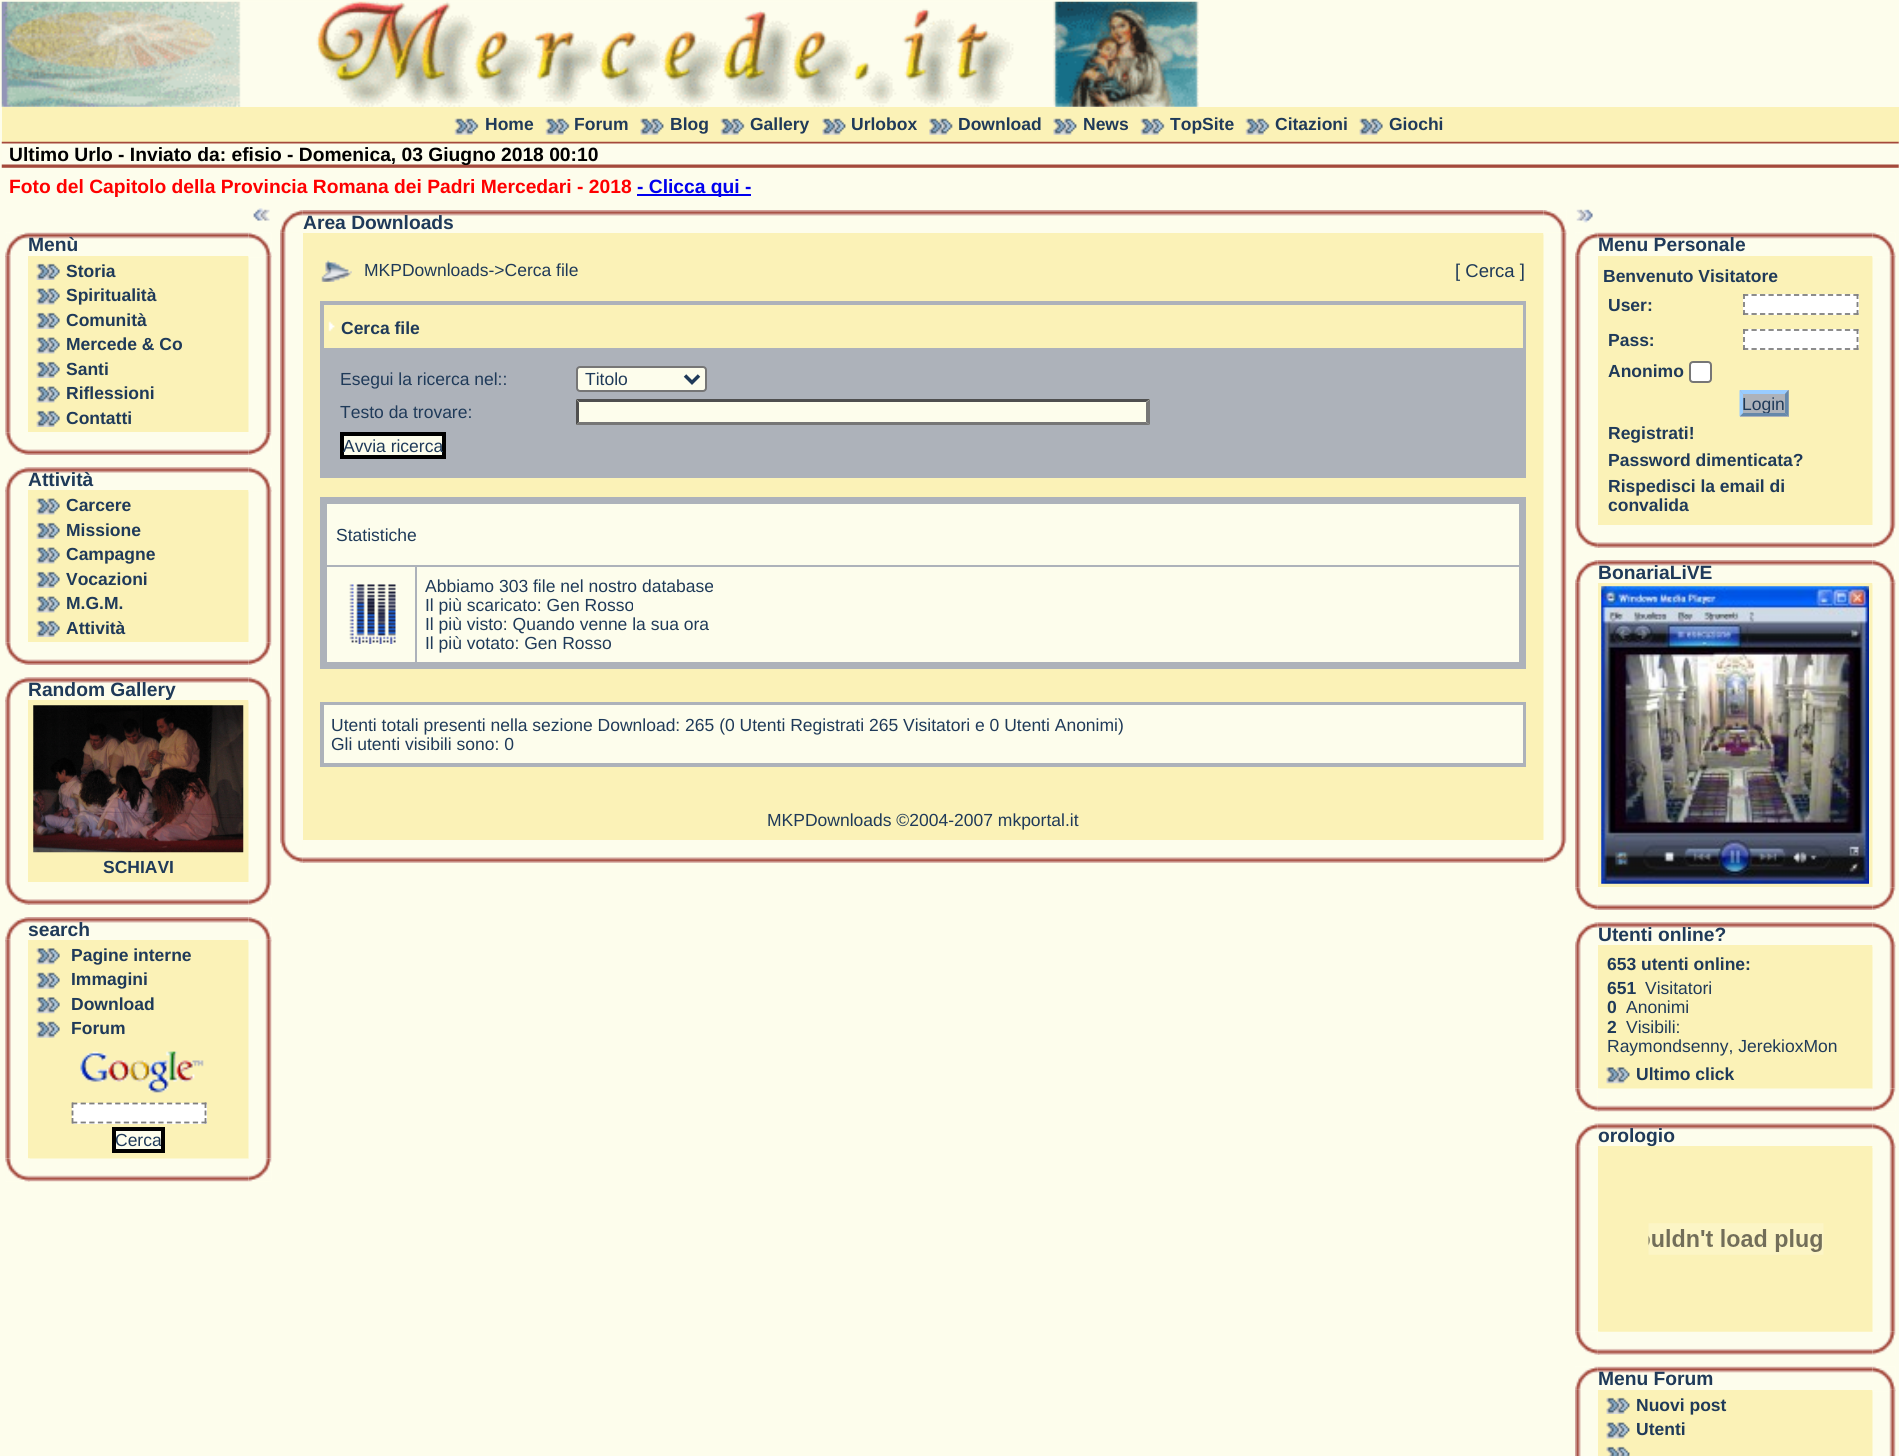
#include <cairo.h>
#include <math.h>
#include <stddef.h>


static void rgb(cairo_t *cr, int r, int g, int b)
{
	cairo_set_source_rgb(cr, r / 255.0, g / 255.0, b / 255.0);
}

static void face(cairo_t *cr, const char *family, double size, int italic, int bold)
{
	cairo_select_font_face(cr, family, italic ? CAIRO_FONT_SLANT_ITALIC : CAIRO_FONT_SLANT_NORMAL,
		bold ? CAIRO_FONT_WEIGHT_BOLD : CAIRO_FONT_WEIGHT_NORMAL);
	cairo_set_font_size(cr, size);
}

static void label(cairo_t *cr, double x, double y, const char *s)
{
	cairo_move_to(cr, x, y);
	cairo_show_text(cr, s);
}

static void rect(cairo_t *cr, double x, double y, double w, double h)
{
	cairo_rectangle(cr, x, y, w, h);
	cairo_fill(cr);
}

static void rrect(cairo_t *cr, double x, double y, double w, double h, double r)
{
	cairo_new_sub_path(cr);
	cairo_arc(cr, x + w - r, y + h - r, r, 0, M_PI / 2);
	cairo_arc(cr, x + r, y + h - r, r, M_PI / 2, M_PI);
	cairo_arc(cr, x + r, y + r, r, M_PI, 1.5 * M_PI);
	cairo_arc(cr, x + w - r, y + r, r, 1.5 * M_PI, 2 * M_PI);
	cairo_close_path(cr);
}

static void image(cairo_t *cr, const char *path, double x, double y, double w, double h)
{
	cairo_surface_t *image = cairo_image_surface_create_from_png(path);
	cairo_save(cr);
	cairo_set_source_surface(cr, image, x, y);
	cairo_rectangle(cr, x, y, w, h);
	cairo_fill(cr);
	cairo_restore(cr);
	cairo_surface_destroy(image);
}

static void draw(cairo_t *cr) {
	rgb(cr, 253, 253, 236);
	cairo_paint(cr);
	image(cr, "image0.png", 1, 1, 1198, 106);
	rgb(cr, 251, 242, 183);
	rect(cr, 2, 107, 1897, 35);
	image(cr, "image1.png", 454, 118, 25, 17);
	face(cr, "Liberation Sans", 17.5, 0, 1);
	rgb(cr, 31, 58, 89);
	label(cr, 485, 130, "Home");
	image(cr, "image2.png", 545, 118, 25, 17);
	label(cr, 574, 130, "Forum");
	image(cr, "image3.png", 640, 118, 24, 17);
	label(cr, 670, 130, "Blog");
	image(cr, "image1.png", 720, 118, 25, 17);
	label(cr, 750, 130, "Gallery");
	image(cr, "image3.png", 822, 118, 24, 17);
	label(cr, 851, 130, "Urlobox");
	image(cr, "image4.png", 929, 118, 24, 17);
	label(cr, 958, 130, "Download");
	image(cr, "image5.png", 1053, 118, 24, 17);
	label(cr, 1083, 130, "News");
	image(cr, "image1.png", 1140, 118, 25, 17);
	label(cr, 1170, 130, "TopSite");
	image(cr, "image1.png", 1245, 118, 25, 17);
	label(cr, 1275, 130, "Citazioni");
	image(cr, "image6.png", 1359, 118, 24, 17);
	label(cr, 1389, 130, "Giochi");
	image(cr, "image7.png", 1, 141, 1898, 27);
	face(cr, "Liberation Sans", 19.25, 0, 1);
	rgb(cr, 0, 0, 0);
	label(cr, 9, 161, "Ultimo Urlo - Inviato da: efisio - Domenica, 03 Giugno 2018 00:10");
	rgb(cr, 255, 0, 0);
	label(cr, 9, 193, "Foto del Capitolo della Provincia Romana dei Padri Mercedari - 2018");
	rgb(cr, 0, 0, 238);
	rect(cr, 637, 194, 114, 2);
	label(cr, 637, 193, "- Clicca qui -");
	image(cr, "image8.png", 253, 208, 17, 13);
	image(cr, "image12.png", 5, 255, 6, 178);
	image(cr, "image9.png", 5, 232, 23, 24);
	image(cr, "image10.png", 28, 232, 221, 7);
	rgb(cr, 31, 58, 89);
	label(cr, 28, 251, "Menù");
	rgb(cr, 251, 242, 183);
	rect(cr, 28, 256, 221, 176);
	image(cr, "image16.png", 248, 255, 24, 178);
	image(cr, "image11.png", 248, 232, 24, 24);
	image(cr, "image13.png", 5, 255, 6, 2);
	image(cr, "image14.png", 36, 263, 24, 17);
	face(cr, "Liberation Sans", 17.5, 0, 1);
	rgb(cr, 31, 58, 89);
	label(cr, 66, 277, "Storia");
	image(cr, "image15.png", 36, 288, 24, 17);
	label(cr, 66, 301, "Spiritualità");
	image(cr, "image14.png", 36, 312, 24, 17);
	label(cr, 66, 326, "Comunità");
	image(cr, "image15.png", 36, 337, 24, 17);
	label(cr, 66, 350, "Mercede & Co");
	image(cr, "image14.png", 36, 361, 24, 17);
	label(cr, 66, 375, "Santi");
	image(cr, "image15.png", 36, 386, 24, 17);
	label(cr, 66, 399, "Riflessioni");
	image(cr, "image14.png", 36, 410, 24, 17);
	label(cr, 66, 424, "Contatti");
	image(cr, "image17.png", 248, 255, 24, 3);
	image(cr, "image18.png", 5, 432, 23, 23);
	image(cr, "image19.png", 28, 449, 221, 6);
	image(cr, "image20.png", 248, 432, 24, 23);
	image(cr, "image21.png", 5, 467, 23, 23);
	image(cr, "image22.png", 28, 467, 221, 6);
	face(cr, "Liberation Sans", 19.25, 0, 1);
	label(cr, 28, 486, "Attività");
	image(cr, "image23.png", 248, 467, 24, 23);
	image(cr, "image24.png", 5, 490, 6, 153);
	image(cr, "image25.png", 5, 490, 1, 2);
	rgb(cr, 251, 242, 183);
	rect(cr, 28, 490, 221, 152);
	image(cr, "image15.png", 36, 498, 24, 17);
	face(cr, "Liberation Sans", 17.5, 0, 1);
	rgb(cr, 31, 58, 89);
	label(cr, 66, 511, "Carcere");
	image(cr, "image14.png", 36, 522, 24, 17);
	label(cr, 66, 536, "Missione");
	image(cr, "image15.png", 36, 547, 24, 17);
	label(cr, 66, 560, "Campagne");
	image(cr, "image14.png", 36, 571, 24, 17);
	label(cr, 66, 585, "Vocazioni");
	image(cr, "image15.png", 36, 596, 24, 17);
	label(cr, 66, 609, "M.G.M.");
	image(cr, "image14.png", 36, 620, 24, 17);
	label(cr, 66, 634, "Attività");
	image(cr, "image26.png", 248, 490, 24, 153);
	image(cr, "image27.png", 248, 490, 24, 2);
	image(cr, "image18.png", 5, 642, 23, 23);
	image(cr, "image19.png", 28, 659, 221, 6);
	image(cr, "image20.png", 248, 642, 24, 23);
	image(cr, "image21.png", 5, 677, 23, 23);
	image(cr, "image22.png", 28, 677, 221, 6);
	face(cr, "Liberation Sans", 19.25, 0, 1);
	label(cr, 28, 696, "Random Gallery");
	image(cr, "image23.png", 248, 677, 24, 23);
	image(cr, "image28.png", 5, 700, 6, 182);
	image(cr, "image25.png", 5, 700, 1, 2);
	rgb(cr, 251, 242, 183);
	rect(cr, 28, 700, 221, 182);
	image(cr, "image29.png", 33, 705, 211, 148);
	face(cr, "Liberation Sans", 17.5, 0, 1);
	rgb(cr, 31, 58, 89);
	label(cr, 103, 873, "SCHIAVI");
	image(cr, "image30.png", 248, 700, 24, 182);
	image(cr, "image27.png", 248, 700, 24, 2);
	image(cr, "image31.png", 5, 882, 23, 23);
	image(cr, "image32.png", 28, 899, 221, 6);
	image(cr, "image33.png", 28, 904, 2, 1);
	image(cr, "image34.png", 248, 882, 24, 23);
	image(cr, "image38.png", 5, 939, 6, 220);
	image(cr, "image35.png", 5, 917, 23, 23);
	image(cr, "image36.png", 28, 917, 221, 6);
	face(cr, "Liberation Sans", 19.25, 0, 1);
	label(cr, 28, 936, "search");
	rgb(cr, 251, 242, 183);
	rect(cr, 28, 940, 221, 219);
	image(cr, "image42.png", 248, 939, 24, 220);
	image(cr, "image37.png", 248, 917, 24, 23);
	image(cr, "image39.png", 5, 939, 4, 3);
	image(cr, "image40.png", 36, 948, 24, 17);
	face(cr, "Liberation Sans", 17.5, 0, 1);
	rgb(cr, 31, 58, 89);
	label(cr, 71, 961, "Pagine interne");
	image(cr, "image6.png", 36, 972, 24, 17);
	label(cr, 71, 985, "Immagini");
	image(cr, "image40.png", 36, 997, 24, 17);
	label(cr, 71, 1010, "Download");
	image(cr, "image6.png", 36, 1021, 24, 17);
	label(cr, 71, 1034, "Forum");
	image(cr, "image41.png", 80, 1051, 124, 42);
	rgb(cr, 255, 255, 255);
	rect(cr, 72, 1103, 135, 21);
	cairo_new_path(cr);
	cairo_move_to(cr, 72, 1103.5);
	cairo_line_to(cr, 206.5, 1103.5);
	rgb(cr, 128, 128, 128);
	cairo_set_line_width(cr, 1.8);
	cairo_set_dash(cr, (double[]){5.25, 3.38}, 2, 0);
	cairo_stroke(cr);
	cairo_new_path(cr);
	cairo_move_to(cr, 205.5, 1102.5);
	cairo_line_to(cr, 205.5, 1108);
	cairo_move_to(cr, 205.5, 1110.5);
	cairo_line_to(cr, 205.5, 1115.5);
	cairo_move_to(cr, 205.5, 1118);
	cairo_line_to(cr, 205.5, 1123.5);
	cairo_set_dash(cr, NULL, 0, 0);
	cairo_stroke(cr);
	cairo_new_path(cr);
	cairo_move_to(cr, 72, 1122.5);
	cairo_line_to(cr, 206.5, 1122.5);
	cairo_set_dash(cr, (double[]){5.25, 3.38}, 2, 0);
	cairo_stroke(cr);
	cairo_new_path(cr);
	cairo_move_to(cr, 72.5, 1102.5);
	cairo_line_to(cr, 72.5, 1108);
	cairo_move_to(cr, 72.5, 1110.5);
	cairo_line_to(cr, 72.5, 1115.5);
	cairo_move_to(cr, 72.5, 1118);
	cairo_line_to(cr, 72.5, 1123.5);
	cairo_set_dash(cr, NULL, 0, 0);
	cairo_stroke(cr);
	rgb(cr, 253, 253, 236);
	cairo_rectangle(cr, 114, 1129, 49, 22);
	cairo_fill_preserve(cr);
	rgb(cr, 0, 0, 0);
	cairo_set_line_width(cr, 4);
	cairo_stroke(cr);
	cairo_save(cr);
	cairo_rectangle(cr, 116, 1131, 45, 19);
	cairo_clip(cr);
	face(cr, "Liberation Sans", 17.5, 0, 0);
	rgb(cr, 31, 58, 89);
	label(cr, 115, 1146, "Cerca");
	cairo_restore(cr);
	image(cr, "image43.png", 248, 939, 24, 3);
	image(cr, "image44.png", 5, 1158, 23, 24);
	image(cr, "image45.png", 28, 1158, 221, 24);
	image(cr, "image46.png", 28, 1158, 2, 24);
	image(cr, "image47.png", 248, 1158, 24, 24);
	image(cr, "image49.png", 302, 210, 1242, 6);
	image(cr, "image51.png", 280, 232, 6, 608);
	image(cr, "image48.png", 280, 210, 23, 23);
	face(cr, "Liberation Sans", 19.25, 0, 1);
	rgb(cr, 31, 58, 89);
	label(cr, 303, 229, "Area Downloads");
	rgb(cr, 251, 242, 183);
	rect(cr, 303, 233, 1241, 607);
	image(cr, "image56.png", 1543, 232, 24, 608);
	image(cr, "image50.png", 1543, 210, 24, 23);
	image(cr, "image52.png", 280, 232, 4, 1);
	image(cr, "image53.png", 321, 260, 31, 22);
	face(cr, "Liberation Sans", 17.5, 0, 0);
	rgb(cr, 31, 58, 89);
	label(cr, 364, 276, "MKPDownloads->Cerca file");
	face(cr, "Liberation Sans", 18.5, 0, 0);
	label(cr, 1455, 277, "[ Cerca ]");
	rgb(cr, 173, 178, 186);
	rect(cr, 320, 301, 1206, 177);
	rgb(cr, 251, 242, 183);
	rect(cr, 324, 305, 1199, 43);
	image(cr, "image54.png", 328, 321, 7, 11);
	face(cr, "Liberation Sans", 17.5, 0, 1);
	rgb(cr, 31, 58, 89);
	label(cr, 341, 334, "Cerca file");
	face(cr, "Liberation Sans", 17.5, 0, 0);
	label(cr, 340, 385, "Esegui la ricerca nel::");
	rgb(cr, 253, 253, 236);
	rrect(cr, 577, 367, 129, 24, 3);
	cairo_fill_preserve(cr);
	rgb(cr, 118, 118, 118);
	cairo_set_line_width(cr, 2);
	cairo_stroke(cr);
	cairo_new_path(cr);
	cairo_move_to(cr, 685, 375.5);
	cairo_line_to(cr, 692, 382.5);
	cairo_line_to(cr, 699, 375.5);
	rgb(cr, 31, 58, 89);
	cairo_set_line_width(cr, 3.5);
	cairo_stroke(cr);
	label(cr, 585, 385, "Titolo");
	label(cr, 340, 418, "Testo da trovare:");
	rgb(cr, 253, 253, 236);
	rect(cr, 576, 399, 574, 26);
	rgb(cr, 79, 79, 79);
	cairo_new_path(cr);
	cairo_move_to(cr, 576, 399);
	cairo_line_to(cr, 1150, 399);
	cairo_line_to(cr, 1146, 402);
	cairo_line_to(cr, 579, 402);
	cairo_close_path(cr);
	cairo_fill(cr);
	rgb(cr, 118, 118, 118);
	cairo_new_path(cr);
	cairo_move_to(cr, 1150, 399);
	cairo_line_to(cr, 1150, 425);
	cairo_line_to(cr, 1146, 422);
	cairo_line_to(cr, 1146, 402.5);
	cairo_close_path(cr);
	cairo_fill(cr);
	cairo_new_path(cr);
	cairo_move_to(cr, 1150, 425);
	cairo_line_to(cr, 576, 425);
	cairo_line_to(cr, 579, 422);
	cairo_line_to(cr, 1146, 422);
	cairo_close_path(cr);
	cairo_fill(cr);
	rgb(cr, 79, 79, 79);
	cairo_new_path(cr);
	cairo_move_to(cr, 576, 425);
	cairo_line_to(cr, 576, 399);
	cairo_line_to(cr, 579, 402.5);
	cairo_line_to(cr, 579, 422);
	cairo_close_path(cr);
	cairo_fill(cr);
	rgb(cr, 253, 253, 236);
	cairo_rectangle(cr, 342, 434, 102, 23);
	cairo_fill_preserve(cr);
	rgb(cr, 0, 0, 0);
	cairo_set_line_width(cr, 4);
	cairo_stroke(cr);
	rgb(cr, 31, 58, 89);
	label(cr, 343, 452, "Avvia ricerca");
	rgb(cr, 173, 178, 186);
	rect(cr, 320, 497, 1206, 172);
	rgb(cr, 253, 253, 236);
	rect(cr, 327, 504, 1192, 61);
	rgb(cr, 31, 58, 89);
	label(cr, 336, 541, "Statistiche");
	rgb(cr, 253, 253, 236);
	rect(cr, 327, 567, 88, 95);
	image(cr, "image55.png", 349, 584, 47, 60);
	rect(cr, 417, 567, 1102, 95);
	rgb(cr, 31, 58, 89);
	label(cr, 425, 592, "Abbiamo 303 file nel nostro database");
	label(cr, 425, 611, "Il più scaricato: Gen Rosso");
	label(cr, 425, 630, "Il più visto: Quando venne la sua ora");
	label(cr, 425, 649, "Il più votato: Gen Rosso");
	rgb(cr, 173, 178, 186);
	rect(cr, 320, 702, 1206, 65);
	rgb(cr, 253, 253, 236);
	rect(cr, 324, 705, 1199, 58);
	rgb(cr, 31, 58, 89);
	label(cr, 331, 731, "Utenti totali presenti nella sezione Download: 265 (0 Utenti Registrati 265 Visitatori e 0 Utenti Anonimi)");
	label(cr, 331, 750, "Gli utenti visibili sono: 0");
	label(cr, 767, 826, "MKPDownloads ©2004-2007 mkportal.it");
	image(cr, "image43.png", 1543, 232, 24, 3);
	image(cr, "image58.png", 302, 857, 1242, 6);
	image(cr, "image57.png", 280, 840, 23, 23);
	image(cr, "image59.png", 302, 859, 3, 4);
	image(cr, "image60.png", 1543, 840, 24, 23);
	image(cr, "image61.png", 1576, 209, 17, 14);
	image(cr, "image63.png", 1597, 232, 276, 7);
	image(cr, "image65.png", 1575, 255, 6, 270);
	image(cr, "image62.png", 1575, 232, 23, 24);
	face(cr, "Liberation Sans", 19.25, 0, 1);
	label(cr, 1598, 251, "Menu Personale");
	rgb(cr, 251, 242, 183);
	rect(cr, 1598, 256, 275, 269);
	image(cr, "image67.png", 1872, 255, 24, 270);
	image(cr, "image64.png", 1872, 232, 24, 24);
	image(cr, "image66.png", 1575, 255, 5, 1);
	face(cr, "Liberation Sans", 17.5, 0, 1);
	rgb(cr, 31, 58, 89);
	label(cr, 1603, 282, "Benvenuto Visitatore");
	label(cr, 1608, 311, "User:");
	rgb(cr, 255, 255, 255);
	rect(cr, 1743, 294, 116, 21);
	cairo_new_path(cr);
	cairo_move_to(cr, 1743, 295);
	cairo_line_to(cr, 1858.5, 295);
	rgb(cr, 128, 128, 128);
	cairo_set_line_width(cr, 1.8);
	cairo_set_dash(cr, (double[]){5.25, 3.24}, 2, 0);
	cairo_stroke(cr);
	cairo_new_path(cr);
	cairo_move_to(cr, 1857.5, 294);
	cairo_line_to(cr, 1857.5, 299);
	cairo_move_to(cr, 1857.5, 302);
	cairo_line_to(cr, 1857.5, 307);
	cairo_move_to(cr, 1857.5, 310);
	cairo_line_to(cr, 1857.5, 315);
	cairo_set_dash(cr, NULL, 0, 0);
	cairo_stroke(cr);
	cairo_new_path(cr);
	cairo_move_to(cr, 1743, 314);
	cairo_line_to(cr, 1858.5, 314);
	cairo_set_dash(cr, (double[]){5.25, 3.24}, 2, 0);
	cairo_stroke(cr);
	cairo_new_path(cr);
	cairo_move_to(cr, 1744, 294);
	cairo_line_to(cr, 1744, 299);
	cairo_move_to(cr, 1744, 302);
	cairo_line_to(cr, 1744, 307);
	cairo_move_to(cr, 1744, 310);
	cairo_line_to(cr, 1744, 315);
	cairo_set_dash(cr, NULL, 0, 0);
	cairo_stroke(cr);
	rgb(cr, 31, 58, 89);
	label(cr, 1608, 346, "Pass:");
	rgb(cr, 255, 255, 255);
	rect(cr, 1743, 329, 116, 21);
	cairo_new_path(cr);
	cairo_move_to(cr, 1743, 330);
	cairo_line_to(cr, 1858.5, 330);
	rgb(cr, 128, 128, 128);
	cairo_set_dash(cr, (double[]){5.25, 3.24}, 2, 0);
	cairo_stroke(cr);
	cairo_new_path(cr);
	cairo_move_to(cr, 1857.5, 329);
	cairo_line_to(cr, 1857.5, 334);
	cairo_move_to(cr, 1857.5, 337);
	cairo_line_to(cr, 1857.5, 342);
	cairo_move_to(cr, 1857.5, 345);
	cairo_line_to(cr, 1857.5, 350);
	cairo_set_dash(cr, NULL, 0, 0);
	cairo_stroke(cr);
	cairo_new_path(cr);
	cairo_move_to(cr, 1743, 349);
	cairo_line_to(cr, 1858.5, 349);
	cairo_set_dash(cr, (double[]){5.25, 3.24}, 2, 0);
	cairo_stroke(cr);
	cairo_new_path(cr);
	cairo_move_to(cr, 1744, 329);
	cairo_line_to(cr, 1744, 334);
	cairo_move_to(cr, 1744, 337);
	cairo_line_to(cr, 1744, 342);
	cairo_move_to(cr, 1744, 345);
	cairo_line_to(cr, 1744, 350);
	cairo_set_dash(cr, NULL, 0, 0);
	cairo_stroke(cr);
	rgb(cr, 31, 58, 89);
	label(cr, 1608, 377, "Anonimo");
	rgb(cr, 255, 255, 255);
	rrect(cr, 1690, 362, 21, 20, 3);
	cairo_fill_preserve(cr);
	rgb(cr, 118, 118, 118);
	cairo_set_line_width(cr, 2);
	cairo_stroke(cr);
	rgb(cr, 173, 178, 186);
	rect(cr, 1740, 390, 49, 27);
	rgb(cr, 153, 204, 255);
	cairo_new_path(cr);
	cairo_move_to(cr, 1740, 390);
	cairo_line_to(cr, 1788, 390);
	cairo_line_to(cr, 1785, 394);
	cairo_line_to(cr, 1743, 394);
	cairo_close_path(cr);
	cairo_fill(cr);
	rgb(cr, 102, 136, 170);
	cairo_new_path(cr);
	cairo_move_to(cr, 1788.5, 390);
	cairo_line_to(cr, 1788.5, 416.5);
	cairo_line_to(cr, 1785, 413);
	cairo_line_to(cr, 1785, 394);
	cairo_close_path(cr);
	cairo_fill(cr);
	cairo_new_path(cr);
	cairo_move_to(cr, 1788, 416);
	cairo_line_to(cr, 1740, 416);
	cairo_line_to(cr, 1743, 413);
	cairo_line_to(cr, 1785, 413);
	cairo_close_path(cr);
	cairo_fill(cr);
	rgb(cr, 153, 204, 255);
	cairo_new_path(cr);
	cairo_move_to(cr, 1739.5, 416.5);
	cairo_line_to(cr, 1739.5, 390);
	cairo_line_to(cr, 1743, 394);
	cairo_line_to(cr, 1743, 413);
	cairo_close_path(cr);
	cairo_fill(cr);
	cairo_save(cr);
	cairo_rectangle(cr, 1743, 394, 42, 19);
	cairo_clip(cr);
	face(cr, "Liberation Sans", 17.5, 0, 0);
	rgb(cr, 31, 58, 89);
	label(cr, 1742, 410, "Login");
	cairo_restore(cr);
	rgb(cr, 31, 58, 89);
	label(cr, 1608, 439, "Registrati!");
	label(cr, 1608, 466, "Password dimenticata?");
	label(cr, 1608, 492, "Rispedisci la email di");
	label(cr, 1608, 511, "convalida");
	image(cr, "image68.png", 1872, 255, 24, 3);
	image(cr, "image70.png", 1597, 542, 276, 6);
	image(cr, "image69.png", 1575, 525, 23, 23);
	image(cr, "image59.png", 1597, 544, 3, 4);
	image(cr, "image71.png", 1872, 525, 24, 23);
	image(cr, "image73.png", 1597, 560, 276, 6);
	image(cr, "image75.png", 1575, 582, 6, 306);
	image(cr, "image72.png", 1575, 560, 23, 23);
	face(cr, "Liberation Sans", 19.25, 0, 1);
	label(cr, 1598, 579, "BonariaLiVE");
	rgb(cr, 251, 242, 183);
	rect(cr, 1598, 583, 275, 304);
	image(cr, "image78.png", 1872, 582, 24, 306);
	image(cr, "image74.png", 1872, 560, 24, 23);
	image(cr, "image76.png", 1575, 582, 4, 1);
	image(cr, "image77.png", 1601, 586, 268, 298);
	image(cr, "image79.png", 1872, 582, 24, 3);
	image(cr, "image81.png", 1597, 904, 276, 6);
	image(cr, "image80.png", 1575, 887, 23, 23);
	image(cr, "image82.png", 1597, 906, 1, 4);
	image(cr, "image83.png", 1872, 887, 24, 23);
	image(cr, "image85.png", 1597, 922, 276, 6);
	image(cr, "image84.png", 1575, 922, 23, 23);
	rgb(cr, 31, 58, 89);
	label(cr, 1598, 941, "Utenti online?");
	image(cr, "image86.png", 1872, 922, 24, 23);
	image(cr, "image87.png", 1575, 945, 6, 144);
	rgb(cr, 251, 242, 183);
	rect(cr, 1598, 945, 275, 144);
	face(cr, "Liberation Sans", 17.5, 0, 1);
	rgb(cr, 31, 58, 89);
	label(cr, 1607, 970, "653 utenti online:");
	label(cr, 1607, 994, "651");
	face(cr, "Liberation Sans", 17.5, 0, 0);
	label(cr, 1645, 994, "Visitatori");
	face(cr, "Liberation Sans", 17.5, 0, 1);
	label(cr, 1607, 1013, "0");
	face(cr, "Liberation Sans", 17.5, 0, 0);
	label(cr, 1626, 1013, "Anonimi");
	face(cr, "Liberation Sans", 17.5, 0, 1);
	label(cr, 1607, 1033, "2");
	face(cr, "Liberation Sans", 17.5, 0, 0);
	label(cr, 1626, 1033, "Visibili:");
	label(cr, 1607, 1052, "Raymondsenny, JerekioxMon");
	image(cr, "image88.png", 1606, 1067, 24, 17);
	face(cr, "Liberation Sans", 17.5, 0, 1);
	label(cr, 1636, 1080, "Ultimo click");
	image(cr, "image89.png", 1872, 945, 24, 144);
	image(cr, "image90.png", 1872, 945, 24, 2);
	image(cr, "image92.png", 1597, 1088, 276, 24);
	image(cr, "image91.png", 1575, 1088, 23, 24);
	image(cr, "image93.png", 1597, 1088, 3, 24);
	image(cr, "image94.png", 1872, 1088, 24, 24);
	image(cr, "image96.png", 1597, 1123, 276, 7);
	image(cr, "image98.png", 1575, 1146, 6, 186);
	image(cr, "image95.png", 1575, 1123, 23, 24);
	rgb(cr, 251, 242, 183);
	rect(cr, 1598, 1146, 275, 186);
	face(cr, "Liberation Sans", 19.25, 0, 1);
	rgb(cr, 31, 58, 89);
	label(cr, 1598, 1142, "orologio");
	image(cr, "image101.png", 1872, 1146, 24, 186);
	image(cr, "image97.png", 1872, 1123, 24, 24);
	image(cr, "image99.png", 1575, 1146, 5, 1);
	image(cr, "image100.png", 1648, 1223, 176, 32);
	image(cr, "image102.png", 1872, 1146, 24, 2);
	image(cr, "image104.png", 1597, 1331, 276, 24);
	image(cr, "image103.png", 1575, 1331, 23, 24);
	image(cr, "image105.png", 1597, 1331, 3, 24);
	image(cr, "image106.png", 1872, 1331, 24, 24);
	image(cr, "image63.png", 1597, 1366, 276, 7);
	image(cr, "image107.png", 1575, 1389, 6, 67);
	image(cr, "image62.png", 1575, 1366, 23, 24);
	label(cr, 1598, 1385, "Menu Forum");
	rgb(cr, 251, 242, 183);
	rect(cr, 1598, 1390, 275, 66);
	image(cr, "image111.png", 1872, 1389, 24, 67);
	image(cr, "image64.png", 1872, 1366, 24, 24);
	image(cr, "image66.png", 1575, 1389, 5, 1);
	image(cr, "image108.png", 1606, 1397, 24, 17);
	face(cr, "Liberation Sans", 17.5, 0, 1);
	rgb(cr, 31, 58, 89);
	label(cr, 1636, 1411, "Nuovi post");
	image(cr, "image109.png", 1606, 1422, 24, 17);
	label(cr, 1636, 1435, "Utenti");
	image(cr, "image110.png", 1606, 1446, 24, 10);
	image(cr, "image68.png", 1872, 1389, 24, 3);
}

int main(void) {
	cairo_surface_t *surface = cairo_image_surface_create(CAIRO_FORMAT_RGB24, 1899, 1456);
	cairo_t *cr = cairo_create(surface);
	cairo_font_options_t *options = cairo_font_options_create();
	cairo_font_options_set_hint_metrics(options, CAIRO_HINT_METRICS_OFF);
	cairo_font_options_set_hint_style(options, CAIRO_HINT_STYLE_NONE);
	cairo_set_font_options(cr, options);
	cairo_set_miter_limit(cr, 4);
	draw(cr);
	cairo_surface_write_to_png(surface, "render.png");
	cairo_font_options_destroy(options);
	cairo_destroy(cr);
	cairo_surface_destroy(surface);
	return 0;
}
